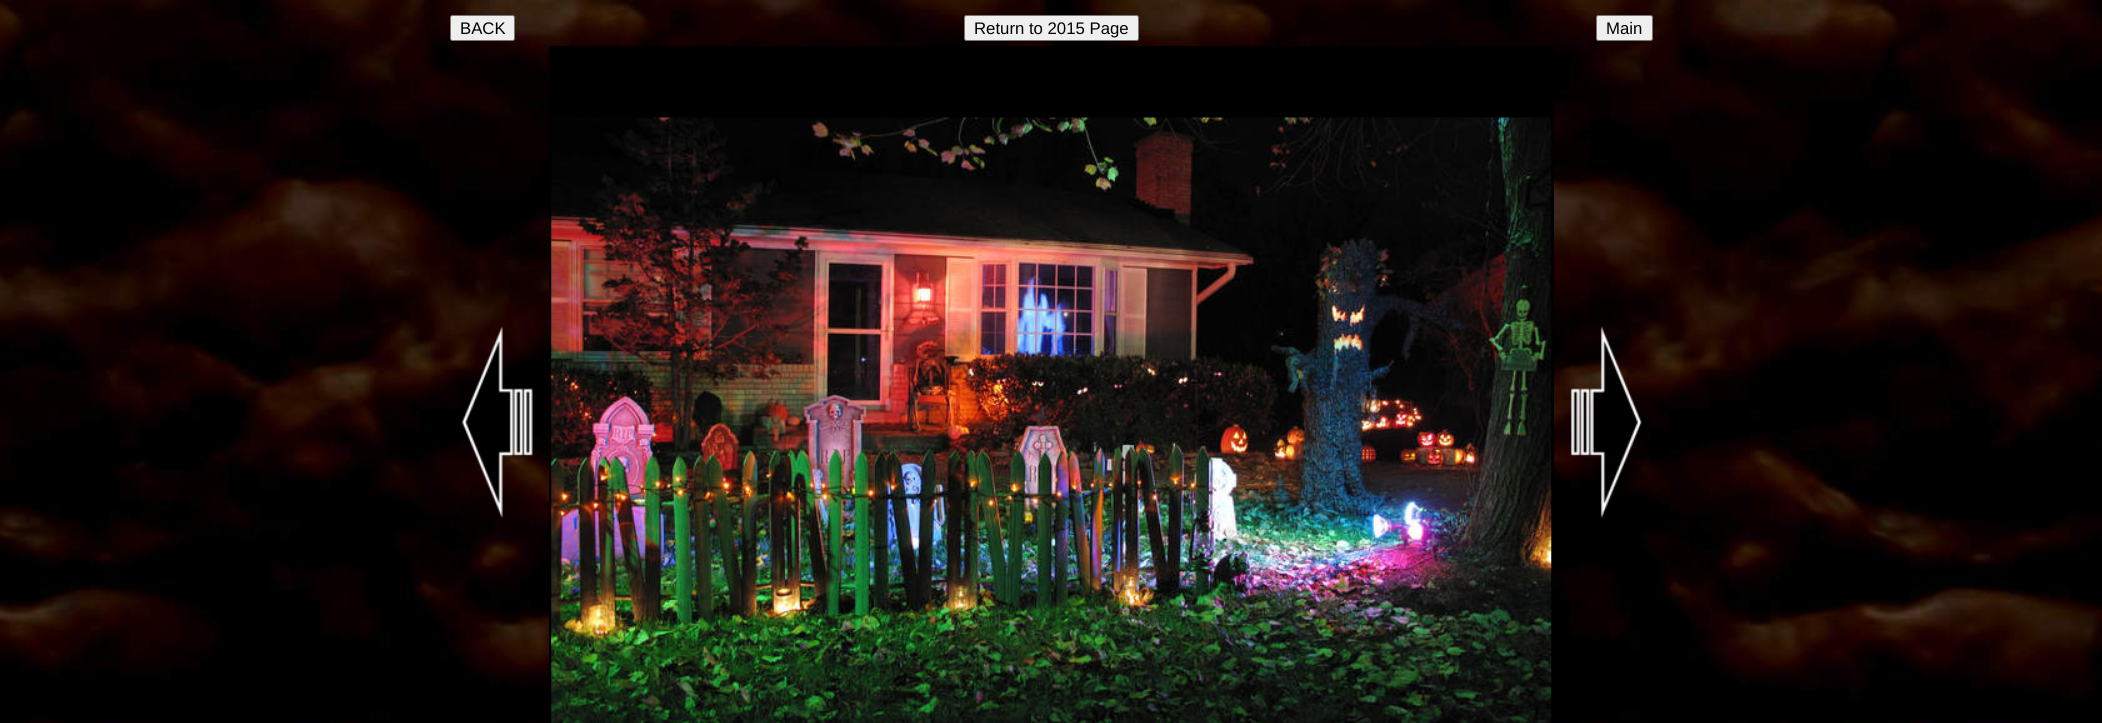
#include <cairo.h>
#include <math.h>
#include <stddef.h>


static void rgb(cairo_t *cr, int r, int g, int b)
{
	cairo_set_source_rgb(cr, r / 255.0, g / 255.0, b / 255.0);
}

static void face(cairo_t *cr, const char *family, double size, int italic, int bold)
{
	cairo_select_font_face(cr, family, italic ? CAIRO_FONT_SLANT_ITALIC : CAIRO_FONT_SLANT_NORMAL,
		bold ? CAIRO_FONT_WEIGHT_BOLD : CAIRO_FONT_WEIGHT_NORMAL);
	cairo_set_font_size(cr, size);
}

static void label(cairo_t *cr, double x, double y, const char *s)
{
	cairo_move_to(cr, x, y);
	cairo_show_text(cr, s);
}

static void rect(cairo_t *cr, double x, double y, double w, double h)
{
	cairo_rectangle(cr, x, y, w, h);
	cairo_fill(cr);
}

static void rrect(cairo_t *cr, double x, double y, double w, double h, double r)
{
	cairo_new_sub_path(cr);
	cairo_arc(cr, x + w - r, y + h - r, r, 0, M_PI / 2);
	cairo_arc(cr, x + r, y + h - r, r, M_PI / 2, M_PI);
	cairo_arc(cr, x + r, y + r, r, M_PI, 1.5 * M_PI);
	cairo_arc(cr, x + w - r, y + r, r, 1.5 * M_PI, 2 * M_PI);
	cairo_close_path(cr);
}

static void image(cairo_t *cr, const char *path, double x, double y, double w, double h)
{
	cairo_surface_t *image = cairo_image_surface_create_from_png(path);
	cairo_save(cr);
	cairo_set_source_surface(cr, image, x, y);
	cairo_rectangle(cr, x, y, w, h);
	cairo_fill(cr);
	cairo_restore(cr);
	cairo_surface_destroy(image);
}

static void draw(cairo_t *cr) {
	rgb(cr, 255, 255, 255);
	cairo_paint(cr);
	image(cr, "image0.png", 0, 0, 2102, 723);
	rgb(cr, 239, 239, 239);
	rrect(cr, 450.5, 15.5, 64, 25, 2);
	cairo_fill_preserve(cr);
	rgb(cr, 118, 118, 118);
	cairo_set_line_width(cr, 1);
	cairo_stroke(cr);
	face(cr, "Liberation Sans", 16.75, 0, 0);
	rgb(cr, 0, 0, 0);
	label(cr, 460, 34, "BACK");
	rgb(cr, 239, 239, 239);
	rrect(cr, 964.5, 15.5, 174, 25, 2);
	cairo_fill_preserve(cr);
	rgb(cr, 118, 118, 118);
	cairo_stroke(cr);
	rgb(cr, 0, 0, 0);
	label(cr, 974, 34, "Return to 2015 Page");
	rgb(cr, 239, 239, 239);
	rrect(cr, 1596.5, 15.5, 56, 25, 2);
	cairo_fill_preserve(cr);
	rgb(cr, 118, 118, 118);
	cairo_stroke(cr);
	rgb(cr, 0, 0, 0);
	label(cr, 1606, 34, "Main");
	image(cr, "image1.png", 461, 326, 72, 192);
	rect(cr, 549, 46, 1005, 677);
	image(cr, "image2.png", 551, 117, 1001, 606);
	image(cr, "image3.png", 1570, 326, 72, 192);
}

int main(void) {
	cairo_surface_t *surface = cairo_image_surface_create(CAIRO_FORMAT_RGB24, 2102, 723);
	cairo_t *cr = cairo_create(surface);
	cairo_font_options_t *options = cairo_font_options_create();
	cairo_font_options_set_hint_metrics(options, CAIRO_HINT_METRICS_OFF);
	cairo_font_options_set_hint_style(options, CAIRO_HINT_STYLE_NONE);
	cairo_set_font_options(cr, options);
	cairo_set_miter_limit(cr, 4);
	draw(cr);
	cairo_surface_write_to_png(surface, "render.png");
	cairo_font_options_destroy(options);
	cairo_destroy(cr);
	cairo_surface_destroy(surface);
	return 0;
}
